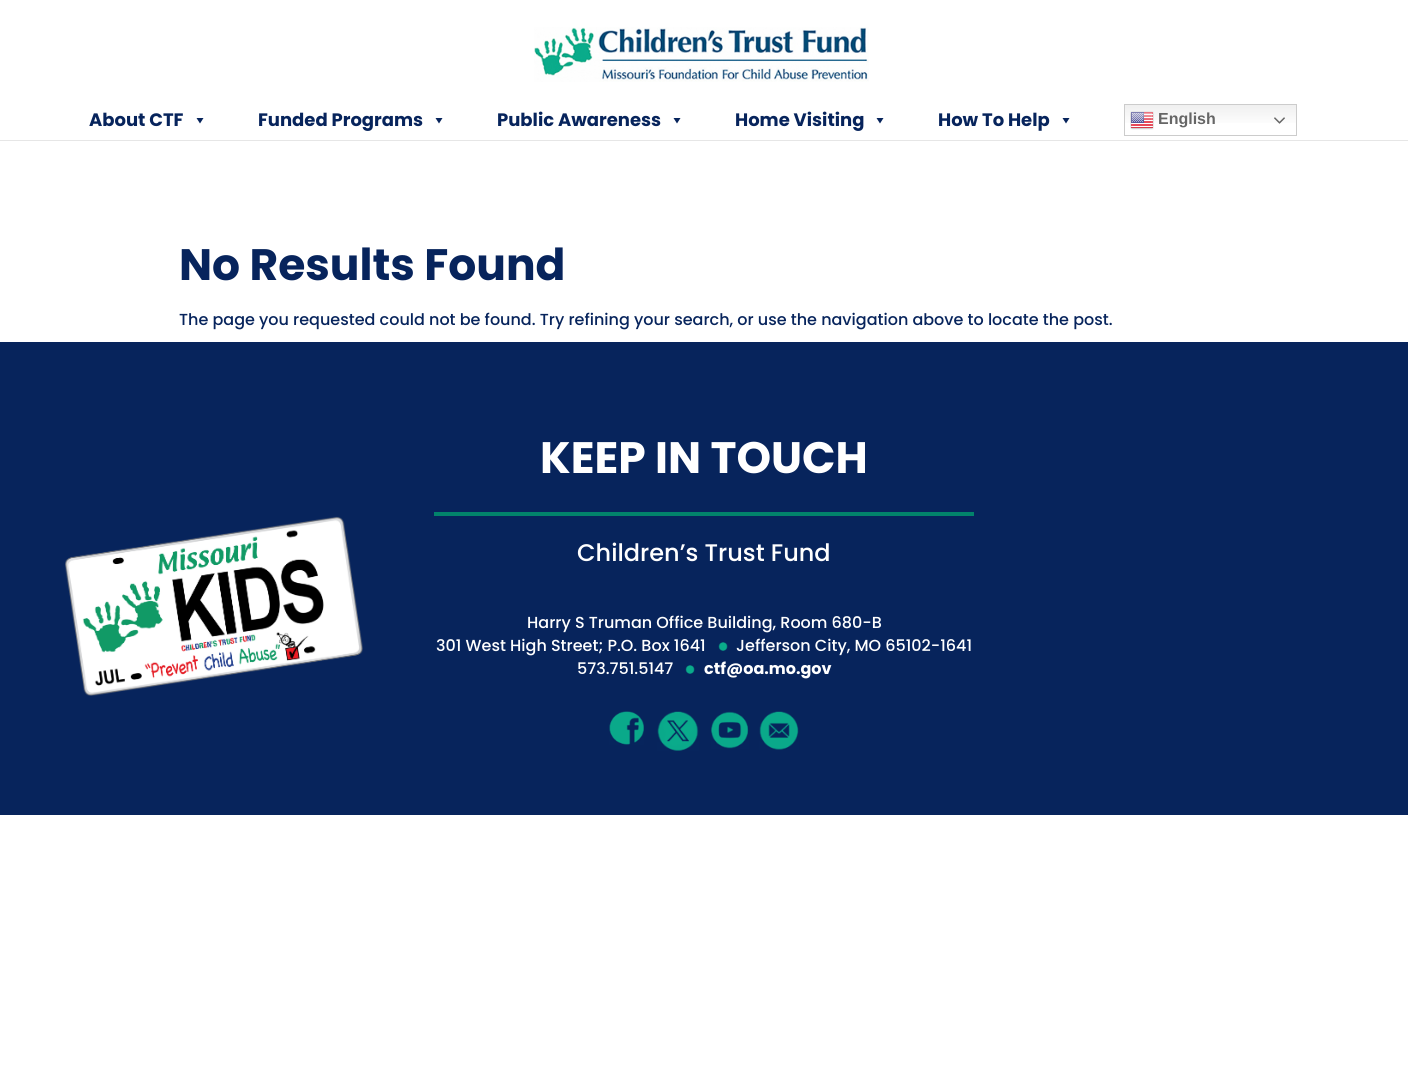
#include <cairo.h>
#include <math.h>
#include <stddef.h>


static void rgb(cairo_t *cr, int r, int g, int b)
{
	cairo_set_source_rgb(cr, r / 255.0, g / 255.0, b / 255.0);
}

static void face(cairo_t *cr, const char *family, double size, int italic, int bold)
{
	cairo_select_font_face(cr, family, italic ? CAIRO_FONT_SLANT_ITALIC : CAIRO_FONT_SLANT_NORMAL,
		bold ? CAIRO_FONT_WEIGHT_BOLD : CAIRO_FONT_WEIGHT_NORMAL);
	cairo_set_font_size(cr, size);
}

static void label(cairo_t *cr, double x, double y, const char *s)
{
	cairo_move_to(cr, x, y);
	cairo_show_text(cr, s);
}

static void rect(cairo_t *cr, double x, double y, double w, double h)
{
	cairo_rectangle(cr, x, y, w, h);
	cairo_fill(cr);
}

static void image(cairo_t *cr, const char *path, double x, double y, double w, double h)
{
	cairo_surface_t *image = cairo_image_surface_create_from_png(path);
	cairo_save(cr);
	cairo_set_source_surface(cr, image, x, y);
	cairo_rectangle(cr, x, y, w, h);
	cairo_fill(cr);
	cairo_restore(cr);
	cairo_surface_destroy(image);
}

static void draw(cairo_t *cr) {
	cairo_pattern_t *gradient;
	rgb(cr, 255, 255, 255);
	cairo_paint(cr);
	rgb(cr, 230, 230, 230);
	rect(cr, 0, 140, 1408, 1);
	image(cr, "image0.png", 534, 27, 335, 55);
	face(cr, "Poppins", 18, 0, 1);
	rgb(cr, 7, 36, 92);
	label(cr, 89, 126, "About CTF");
	cairo_new_path(cr);
	cairo_move_to(cr, 203.5, 118);
	cairo_line_to(cr, 200, 123.5);
	cairo_line_to(cr, 196.5, 118);
	cairo_close_path(cr);
	cairo_fill(cr);
	label(cr, 258, 126, "Funded Programs");
	cairo_new_path(cr);
	cairo_move_to(cr, 442.5, 118);
	cairo_line_to(cr, 439, 123.5);
	cairo_line_to(cr, 435.5, 118);
	cairo_close_path(cr);
	cairo_fill(cr);
	label(cr, 497, 126, "Public Awareness");
	cairo_new_path(cr);
	cairo_move_to(cr, 680.5, 118);
	cairo_line_to(cr, 677, 123.5);
	cairo_line_to(cr, 673.5, 118);
	cairo_close_path(cr);
	cairo_fill(cr);
	label(cr, 735, 126, "Home Visiting");
	cairo_new_path(cr);
	cairo_move_to(cr, 883.5, 118);
	cairo_line_to(cr, 880, 123.5);
	cairo_line_to(cr, 876.5, 118);
	cairo_close_path(cr);
	cairo_fill(cr);
	label(cr, 938, 126, "How To Help");
	cairo_new_path(cr);
	cairo_move_to(cr, 1069.5, 118);
	cairo_line_to(cr, 1066, 123.5);
	cairo_line_to(cr, 1062.5, 118);
	cairo_close_path(cr);
	cairo_fill(cr);
	gradient = cairo_pattern_create_linear(1211, 104, 1211, 136);
	cairo_pattern_add_color_stop_rgba(gradient, 0, 0.937, 0.937, 0.937, 1);
	cairo_pattern_add_color_stop_rgba(gradient, 0.7, 1, 1, 1, 1);
	cairo_set_source(cr, gradient);
	cairo_pattern_destroy(gradient);
	rect(cr, 1125, 105, 171, 18);
	cairo_rectangle(cr, 1124.5, 104.5, 172, 31);
	rgb(cr, 204, 204, 204);
	cairo_set_line_width(cr, 1);
	cairo_stroke(cr);
	image(cr, "image1.png", 1130, 111, 24, 19);
	face(cr, "Liberation Sans", 16, 0, 1);
	rgb(cr, 102, 102, 102);
	label(cr, 1158, 124, "English");
	image(cr, "image2.png", 1274, 117, 11, 7);
	face(cr, "Poppins", 44, 0, 1);
	rgb(cr, 7, 36, 92);
	label(cr, 179, 280, "No Results Found");
	face(cr, "Poppins Medium", 16, 0, 0);
	label(cr, 179, 325, "The page you requested could not be found. Try refining your search, or use the navigation above to locate the post.");
	rect(cr, 0, 342, 1408, 473);
	face(cr, "Poppins", 44, 0, 1);
	rgb(cr, 255, 255, 255);
	label(cr, 540, 473, "KEEP IN TOUCH");
	rgb(cr, 2, 131, 107);
	rect(cr, 434, 512, 540, 4);
	face(cr, "Poppins Medium", 24, 0, 0);
	rgb(cr, 255, 255, 255);
	label(cr, 577, 561, "Children’s Trust Fund");
	image(cr, "image3.png", 65, 516, 298, 180);
	face(cr, "Poppins Medium", 16, 0, 0);
	label(cr, 527, 628, "Harry S Truman Office Building, Room 680-B");
	label(cr, 436, 651, "301 West High Street; P.O. Box 1641");
	image(cr, "image4.png", 718, 642, 10, 9);
	label(cr, 736, 651, "Jefferson City, MO 65102-1641");
	label(cr, 577, 674, "573.751.5147");
	image(cr, "image4.png", 685, 665, 10, 9);
	face(cr, "Poppins", 16, 0, 1);
	label(cr, 704, 674, "ctf@oa.mo.gov");
	image(cr, "image5.png", 609, 711, 35, 34);
	image(cr, "image6.png", 657, 711, 42, 40);
	image(cr, "image7.png", 711, 711, 38, 38);
	image(cr, "image8.png", 759, 711, 40, 39);
}

int main(void) {
	cairo_surface_t *surface = cairo_image_surface_create(CAIRO_FORMAT_RGB24, 1408, 1065);
	cairo_t *cr = cairo_create(surface);
	cairo_font_options_t *options = cairo_font_options_create();
	cairo_font_options_set_hint_metrics(options, CAIRO_HINT_METRICS_OFF);
	cairo_font_options_set_hint_style(options, CAIRO_HINT_STYLE_NONE);
	cairo_set_font_options(cr, options);
	cairo_set_miter_limit(cr, 4);
	draw(cr);
	cairo_surface_write_to_png(surface, "render.png");
	cairo_font_options_destroy(options);
	cairo_destroy(cr);
	cairo_surface_destroy(surface);
	return 0;
}
